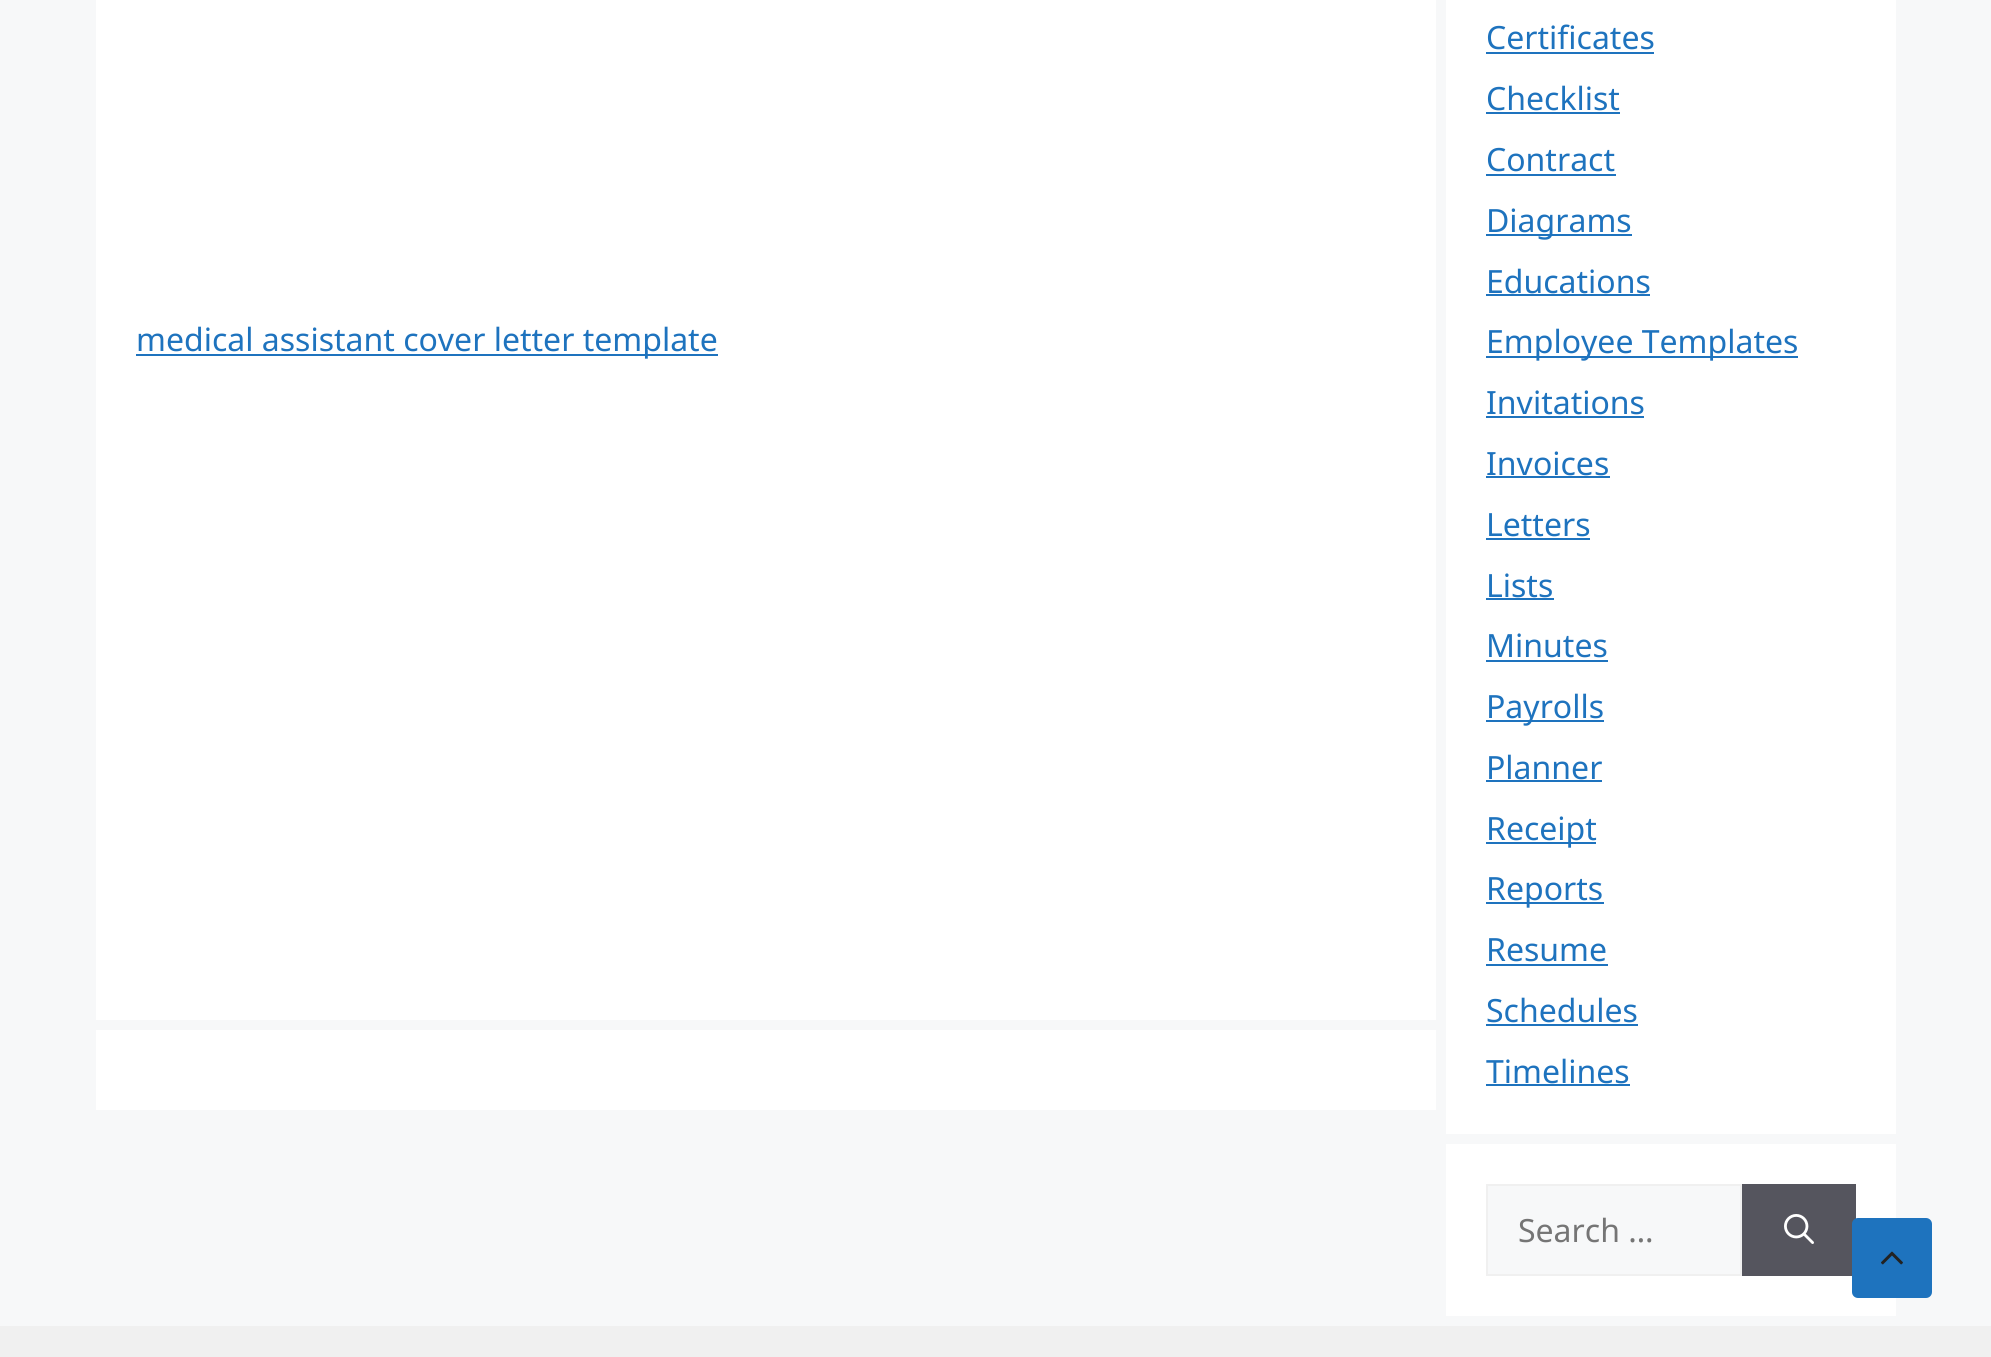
#include <cairo.h>
#include <math.h>
#include <stddef.h>


static void rgb(cairo_t *cr, int r, int g, int b)
{
	cairo_set_source_rgb(cr, r / 255.0, g / 255.0, b / 255.0);
}

static void face(cairo_t *cr, const char *family, double size, int italic, int bold)
{
	cairo_select_font_face(cr, family, italic ? CAIRO_FONT_SLANT_ITALIC : CAIRO_FONT_SLANT_NORMAL,
		bold ? CAIRO_FONT_WEIGHT_BOLD : CAIRO_FONT_WEIGHT_NORMAL);
	cairo_set_font_size(cr, size);
}

static void label(cairo_t *cr, double x, double y, const char *s)
{
	cairo_move_to(cr, x, y);
	cairo_show_text(cr, s);
}

static void rect(cairo_t *cr, double x, double y, double w, double h)
{
	cairo_rectangle(cr, x, y, w, h);
	cairo_fill(cr);
}

static void rrect(cairo_t *cr, double x, double y, double w, double h, double r)
{
	cairo_new_sub_path(cr);
	cairo_arc(cr, x + w - r, y + h - r, r, 0, M_PI / 2);
	cairo_arc(cr, x + r, y + h - r, r, M_PI / 2, M_PI);
	cairo_arc(cr, x + r, y + r, r, M_PI, 1.5 * M_PI);
	cairo_arc(cr, x + w - r, y + r, r, 1.5 * M_PI, 2 * M_PI);
	cairo_close_path(cr);
}

static void image(cairo_t *cr, const char *path, double x, double y, double w, double h)
{
	cairo_surface_t *image = cairo_image_surface_create_from_png(path);
	cairo_save(cr);
	cairo_set_source_surface(cr, image, x, y);
	cairo_rectangle(cr, x, y, w, h);
	cairo_fill(cr);
	cairo_restore(cr);
	cairo_surface_destroy(image);
}

static void draw(cairo_t *cr) {
	rgb(cr, 247, 248, 249);
	cairo_paint(cr);
	rgb(cr, 255, 255, 255);
	rect(cr, 96, 0, 1340, 1020);
	rgb(cr, 30, 115, 190);
	rect(cr, 136, 354, 582, 2);
	face(cr, "Noto Sans", 32, 0, 0);
	label(cr, 136, 351, "medical assistant cover letter template");
	rgb(cr, 255, 255, 255);
	rect(cr, 96, 1030, 1340, 80);
	rect(cr, 1446, 0, 450, 1134);
	rgb(cr, 30, 115, 190);
	label(cr, 1486, 49, "Certificates");
	rect(cr, 1486, 52, 168, 2);
	label(cr, 1486, 110, "Checklist");
	rect(cr, 1486, 112, 134, 2);
	label(cr, 1486, 171, "Contract");
	rect(cr, 1486, 174, 130, 2);
	rect(cr, 1486, 234, 146, 2);
	label(cr, 1486, 232, "Diagrams");
	label(cr, 1486, 293, "Educations");
	rect(cr, 1486, 294, 164, 2);
	rect(cr, 1486, 356, 312, 2);
	label(cr, 1486, 353, "Employee Templates");
	label(cr, 1486, 414, "Invitations");
	rect(cr, 1486, 416, 158, 2);
	label(cr, 1486, 475, "Invoices");
	rect(cr, 1486, 476, 124, 2);
	label(cr, 1486, 536, "Letters");
	rect(cr, 1486, 538, 104, 2);
	label(cr, 1486, 597, "Lists");
	rect(cr, 1486, 598, 68, 2);
	label(cr, 1486, 657, "Minutes");
	rect(cr, 1486, 660, 122, 2);
	rect(cr, 1486, 720, 118, 2);
	label(cr, 1486, 718, "Payrolls");
	label(cr, 1486, 779, "Planner");
	rect(cr, 1486, 780, 116, 2);
	rect(cr, 1486, 842, 110, 2);
	label(cr, 1486, 840, "Receipt");
	rect(cr, 1486, 902, 118, 2);
	label(cr, 1486, 900, "Reports");
	label(cr, 1486, 961, "Resume");
	rect(cr, 1486, 964, 122, 2);
	label(cr, 1486, 1022, "Schedules");
	rect(cr, 1486, 1024, 152, 2);
	label(cr, 1486, 1083, "Timelines");
	rect(cr, 1486, 1084, 144, 2);
	rgb(cr, 255, 255, 255);
	rect(cr, 1446, 1144, 450, 172);
	rgb(cr, 247, 248, 249);
	cairo_rectangle(cr, 1487, 1185, 254, 90);
	cairo_fill_preserve(cr);
	rgb(cr, 240, 240, 240);
	cairo_stroke(cr);
	rgb(cr, 117, 117, 117);
	label(cr, 1518, 1242, "Search …");
	rgb(cr, 85, 85, 94);
	rect(cr, 1742, 1184, 114, 92);
	image(cr, "image0.png", 1784, 1214, 30, 30);
	rgb(cr, 30, 115, 190);
	rrect(cr, 1852, 1218, 80, 80, 6);
	cairo_fill(cr);
	image(cr, "image1.png", 1881, 1251, 22, 14);
	rgb(cr, 240, 240, 240);
	rect(cr, 0, 1326, 1991, 31);
}

int main(void) {
	cairo_surface_t *surface = cairo_image_surface_create(CAIRO_FORMAT_RGB24, 1991, 1357);
	cairo_t *cr = cairo_create(surface);
	cairo_font_options_t *options = cairo_font_options_create();
	cairo_font_options_set_hint_metrics(options, CAIRO_HINT_METRICS_OFF);
	cairo_font_options_set_hint_style(options, CAIRO_HINT_STYLE_NONE);
	cairo_set_font_options(cr, options);
	cairo_set_miter_limit(cr, 4);
	draw(cr);
	cairo_surface_write_to_png(surface, "render.png");
	cairo_font_options_destroy(options);
	cairo_destroy(cr);
	cairo_surface_destroy(surface);
	return 0;
}
